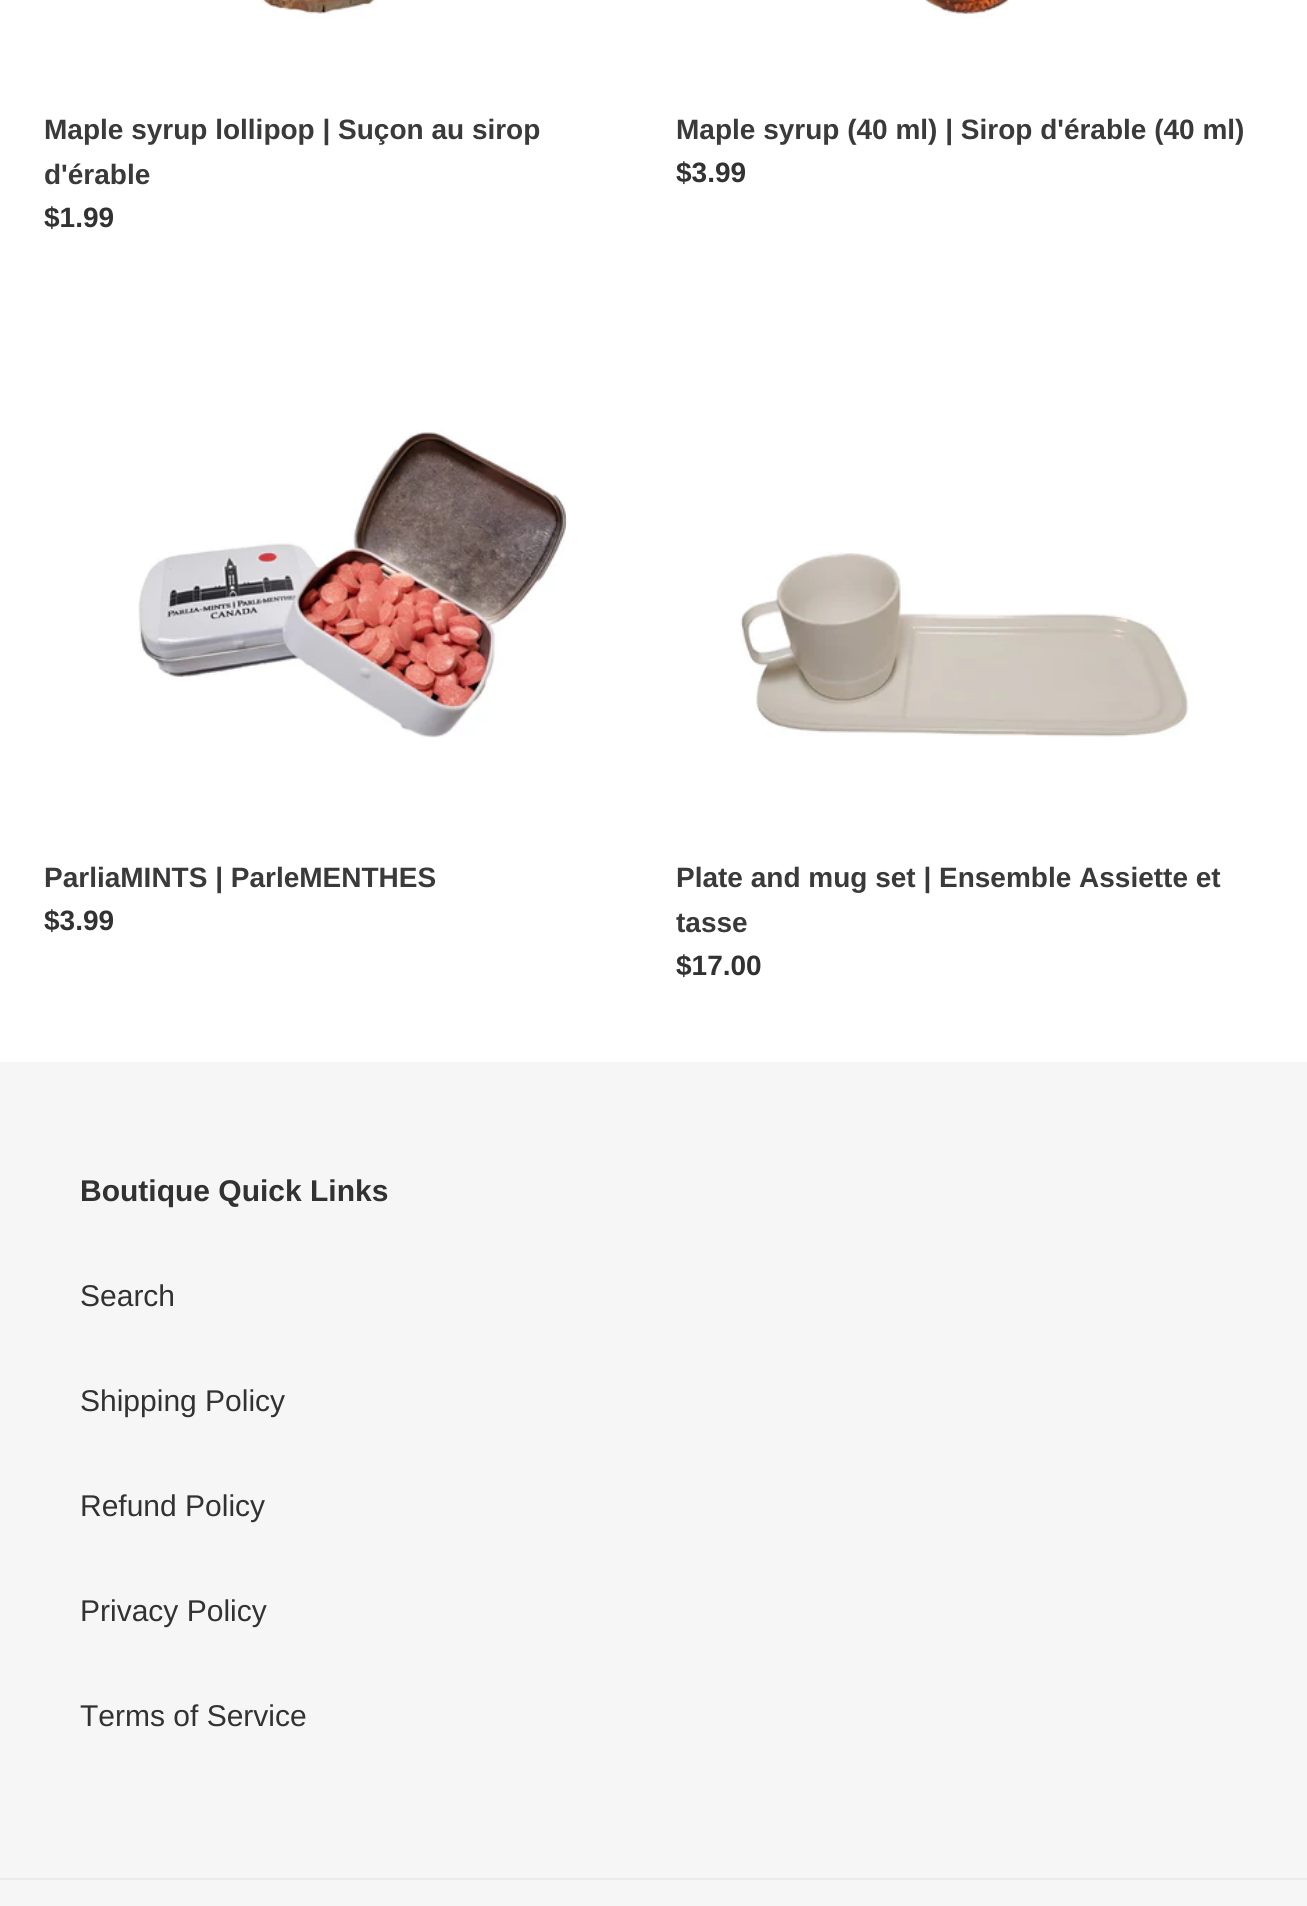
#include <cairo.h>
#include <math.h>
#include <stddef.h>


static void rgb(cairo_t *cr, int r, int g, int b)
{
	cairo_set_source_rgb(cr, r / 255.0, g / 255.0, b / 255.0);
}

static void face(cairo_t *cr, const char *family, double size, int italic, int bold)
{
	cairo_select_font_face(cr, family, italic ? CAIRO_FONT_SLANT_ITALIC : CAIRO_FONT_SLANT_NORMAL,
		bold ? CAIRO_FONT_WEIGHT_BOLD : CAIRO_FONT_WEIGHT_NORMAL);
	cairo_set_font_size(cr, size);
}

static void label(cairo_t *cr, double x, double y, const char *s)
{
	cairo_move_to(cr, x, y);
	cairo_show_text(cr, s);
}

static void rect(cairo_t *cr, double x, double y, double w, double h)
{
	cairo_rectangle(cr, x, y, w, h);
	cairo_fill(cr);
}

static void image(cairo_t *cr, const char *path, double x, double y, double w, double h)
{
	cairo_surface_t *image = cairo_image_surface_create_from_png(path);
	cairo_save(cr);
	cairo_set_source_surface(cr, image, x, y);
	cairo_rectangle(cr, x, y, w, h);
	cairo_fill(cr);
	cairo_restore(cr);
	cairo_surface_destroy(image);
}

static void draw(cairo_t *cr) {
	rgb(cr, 255, 255, 255);
	cairo_paint(cr);
	image(cr, "image0.png", 260, 0, 117, 19);
	face(cr, "Liberation Sans", 28, 0, 1);
	rgb(cr, 58, 58, 58);
	label(cr, 44, 139, "Maple syrup lollipop | Suçon au sirop");
	label(cr, 44, 184, "d'érable");
	rgb(cr, 51, 50, 50);
	label(cr, 44, 227, "$1.99");
	image(cr, "image1.png", 924, 0, 85, 19);
	rgb(cr, 58, 58, 58);
	label(cr, 676, 139, "Maple syrup (40 ml) | Sirop d'érable (40 ml)");
	rgb(cr, 51, 50, 50);
	label(cr, 676, 182, "$3.99");
	image(cr, "image2.png", 138, 430, 430, 308);
	rgb(cr, 58, 58, 58);
	label(cr, 44, 887, "ParliaMINTS | ParleMENTHES");
	rgb(cr, 51, 50, 50);
	label(cr, 44, 930, "$3.99");
	image(cr, "image3.png", 740, 552, 449, 185);
	rgb(cr, 58, 58, 58);
	label(cr, 676, 887, "Plate and mug set | Ensemble Assiette et");
	label(cr, 676, 932, "tasse");
	rgb(cr, 51, 50, 50);
	label(cr, 676, 975, "$17.00");
	rgb(cr, 246, 246, 246);
	rect(cr, 0, 1062, 1307, 844);
	face(cr, "Liberation Sans", 30, 0, 1);
	rgb(cr, 51, 50, 50);
	label(cr, 80, 1201, "Boutique Quick Links");
	face(cr, "Liberation Sans", 30, 0, 0);
	label(cr, 80, 1306, "Search");
	label(cr, 80, 1411, "Shipping Policy");
	label(cr, 80, 1516, "Refund Policy");
	label(cr, 80, 1621, "Privacy Policy");
	label(cr, 80, 1726, "Terms of Service");
	rgb(cr, 235, 235, 235);
	rect(cr, 0, 1878, 1307, 2);
}

int main(void) {
	cairo_surface_t *surface = cairo_image_surface_create(CAIRO_FORMAT_RGB24, 1307, 1906);
	cairo_t *cr = cairo_create(surface);
	cairo_font_options_t *options = cairo_font_options_create();
	cairo_font_options_set_hint_metrics(options, CAIRO_HINT_METRICS_OFF);
	cairo_font_options_set_hint_style(options, CAIRO_HINT_STYLE_NONE);
	cairo_set_font_options(cr, options);
	cairo_set_miter_limit(cr, 4);
	draw(cr);
	cairo_surface_write_to_png(surface, "render.png");
	cairo_font_options_destroy(options);
	cairo_destroy(cr);
	cairo_surface_destroy(surface);
	return 0;
}
